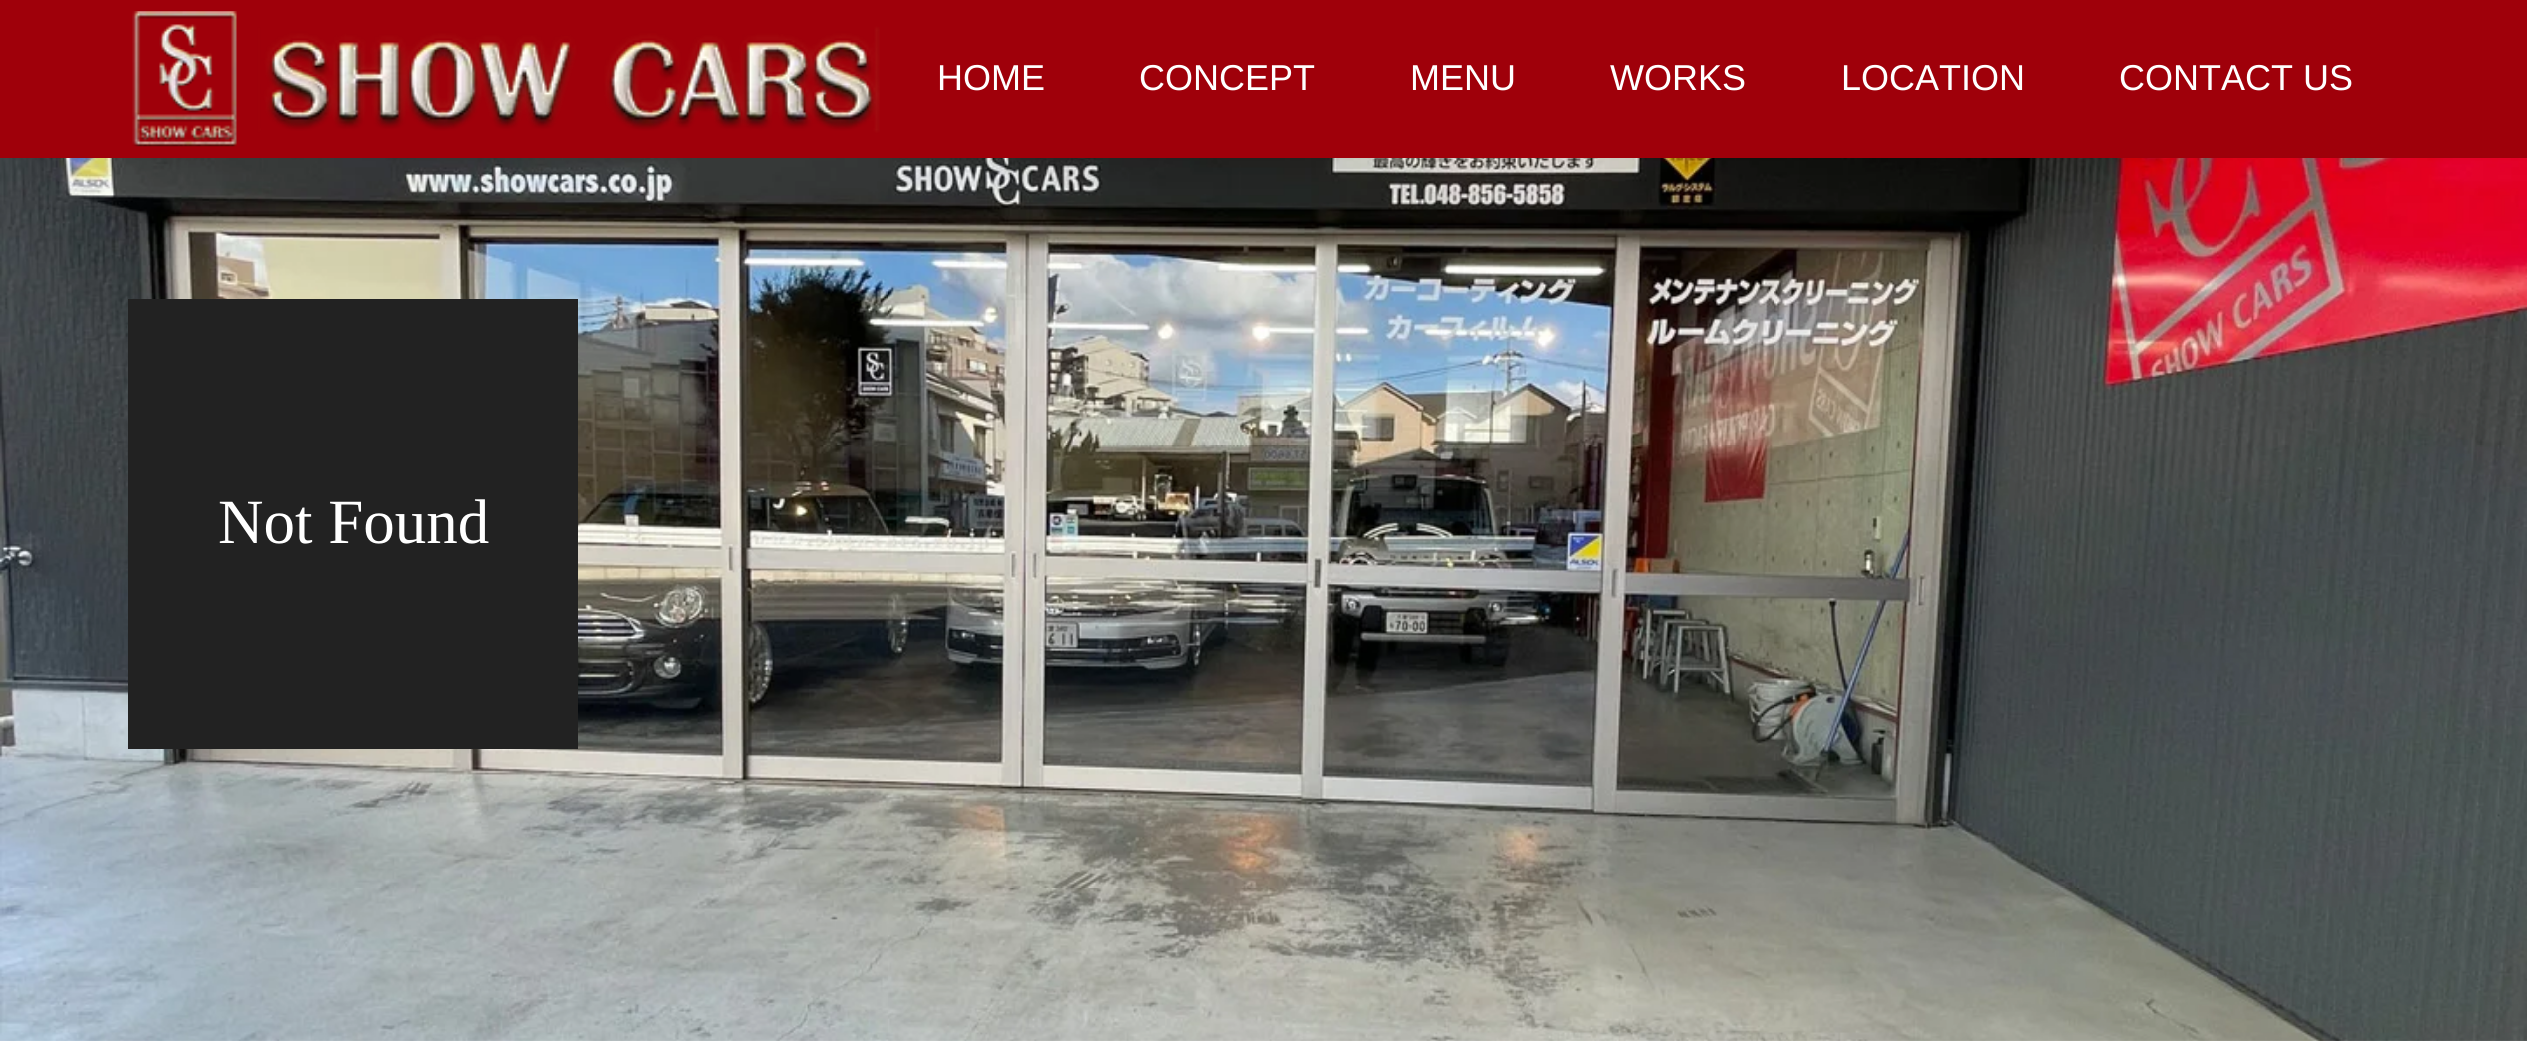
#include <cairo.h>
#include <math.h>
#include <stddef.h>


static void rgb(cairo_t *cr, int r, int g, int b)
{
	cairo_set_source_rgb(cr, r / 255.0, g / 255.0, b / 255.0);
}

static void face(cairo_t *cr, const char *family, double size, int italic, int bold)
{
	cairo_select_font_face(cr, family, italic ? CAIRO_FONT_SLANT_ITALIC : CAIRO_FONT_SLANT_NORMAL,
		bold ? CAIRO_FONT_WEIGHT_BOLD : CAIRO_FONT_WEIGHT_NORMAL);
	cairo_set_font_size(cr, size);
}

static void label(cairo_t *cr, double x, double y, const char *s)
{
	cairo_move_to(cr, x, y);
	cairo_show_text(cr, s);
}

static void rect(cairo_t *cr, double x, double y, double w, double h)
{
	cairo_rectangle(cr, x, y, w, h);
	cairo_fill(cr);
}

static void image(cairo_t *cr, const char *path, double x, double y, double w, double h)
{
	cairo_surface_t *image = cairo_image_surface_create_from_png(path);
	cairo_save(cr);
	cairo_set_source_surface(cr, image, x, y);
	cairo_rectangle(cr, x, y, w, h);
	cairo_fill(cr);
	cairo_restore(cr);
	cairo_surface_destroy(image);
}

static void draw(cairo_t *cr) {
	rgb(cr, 255, 255, 255);
	cairo_paint(cr);
	rgb(cr, 159, 0, 10);
	rect(cr, 0, 0, 2527, 158);
	image(cr, "image0.png", 132, 11, 748, 136);
	face(cr, "Liberation Sans", 36, 0, 0);
	rgb(cr, 255, 255, 255);
	label(cr, 937, 90, "HOME");
	label(cr, 1139, 90, "CONCEPT");
	label(cr, 1410, 90, "MENU");
	label(cr, 1610, 90, "WORKS");
	label(cr, 1841, 90, "LOCATION");
	label(cr, 2119, 90, "CONTACT US");
	image(cr, "image1.png", 0, 158, 2527, 883);
	rgb(cr, 34, 34, 34);
	rect(cr, 128, 299, 450, 450);
	face(cr, "Liberation Serif", 63, 0, 0);
	rgb(cr, 255, 255, 255);
	label(cr, 218, 543, "Not Found");
}

int main(void) {
	cairo_surface_t *surface = cairo_image_surface_create(CAIRO_FORMAT_RGB24, 2527, 1041);
	cairo_t *cr = cairo_create(surface);
	cairo_font_options_t *options = cairo_font_options_create();
	cairo_font_options_set_hint_metrics(options, CAIRO_HINT_METRICS_OFF);
	cairo_font_options_set_hint_style(options, CAIRO_HINT_STYLE_NONE);
	cairo_set_font_options(cr, options);
	cairo_set_miter_limit(cr, 4);
	draw(cr);
	cairo_surface_write_to_png(surface, "render.png");
	cairo_font_options_destroy(options);
	cairo_destroy(cr);
	cairo_surface_destroy(surface);
	return 0;
}
